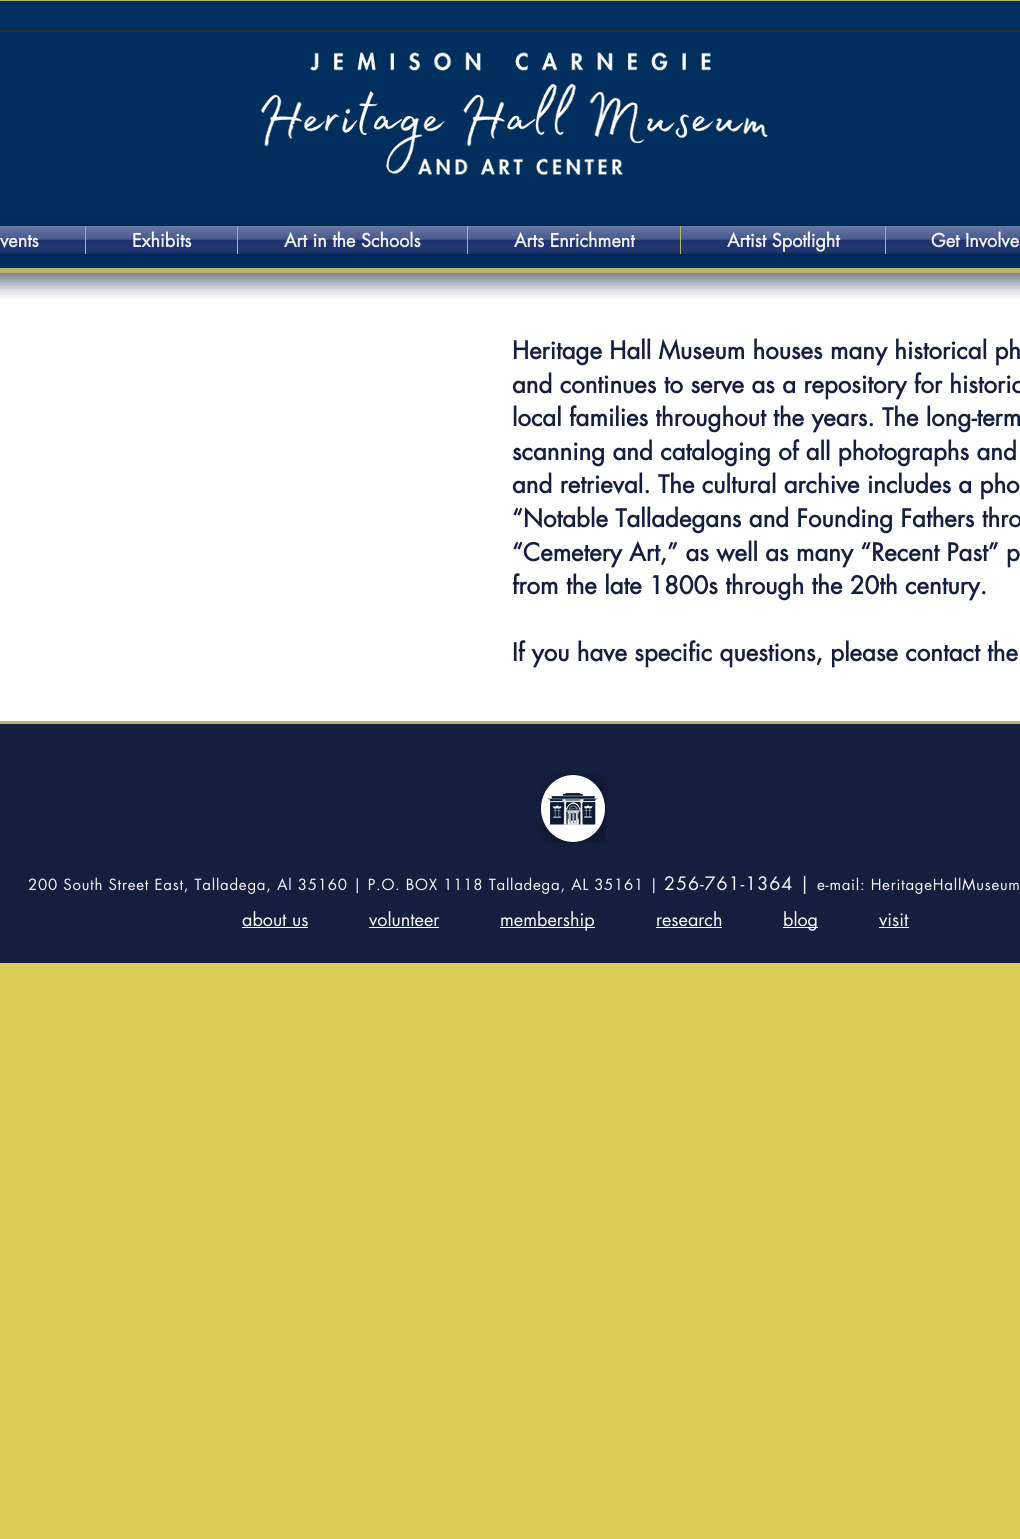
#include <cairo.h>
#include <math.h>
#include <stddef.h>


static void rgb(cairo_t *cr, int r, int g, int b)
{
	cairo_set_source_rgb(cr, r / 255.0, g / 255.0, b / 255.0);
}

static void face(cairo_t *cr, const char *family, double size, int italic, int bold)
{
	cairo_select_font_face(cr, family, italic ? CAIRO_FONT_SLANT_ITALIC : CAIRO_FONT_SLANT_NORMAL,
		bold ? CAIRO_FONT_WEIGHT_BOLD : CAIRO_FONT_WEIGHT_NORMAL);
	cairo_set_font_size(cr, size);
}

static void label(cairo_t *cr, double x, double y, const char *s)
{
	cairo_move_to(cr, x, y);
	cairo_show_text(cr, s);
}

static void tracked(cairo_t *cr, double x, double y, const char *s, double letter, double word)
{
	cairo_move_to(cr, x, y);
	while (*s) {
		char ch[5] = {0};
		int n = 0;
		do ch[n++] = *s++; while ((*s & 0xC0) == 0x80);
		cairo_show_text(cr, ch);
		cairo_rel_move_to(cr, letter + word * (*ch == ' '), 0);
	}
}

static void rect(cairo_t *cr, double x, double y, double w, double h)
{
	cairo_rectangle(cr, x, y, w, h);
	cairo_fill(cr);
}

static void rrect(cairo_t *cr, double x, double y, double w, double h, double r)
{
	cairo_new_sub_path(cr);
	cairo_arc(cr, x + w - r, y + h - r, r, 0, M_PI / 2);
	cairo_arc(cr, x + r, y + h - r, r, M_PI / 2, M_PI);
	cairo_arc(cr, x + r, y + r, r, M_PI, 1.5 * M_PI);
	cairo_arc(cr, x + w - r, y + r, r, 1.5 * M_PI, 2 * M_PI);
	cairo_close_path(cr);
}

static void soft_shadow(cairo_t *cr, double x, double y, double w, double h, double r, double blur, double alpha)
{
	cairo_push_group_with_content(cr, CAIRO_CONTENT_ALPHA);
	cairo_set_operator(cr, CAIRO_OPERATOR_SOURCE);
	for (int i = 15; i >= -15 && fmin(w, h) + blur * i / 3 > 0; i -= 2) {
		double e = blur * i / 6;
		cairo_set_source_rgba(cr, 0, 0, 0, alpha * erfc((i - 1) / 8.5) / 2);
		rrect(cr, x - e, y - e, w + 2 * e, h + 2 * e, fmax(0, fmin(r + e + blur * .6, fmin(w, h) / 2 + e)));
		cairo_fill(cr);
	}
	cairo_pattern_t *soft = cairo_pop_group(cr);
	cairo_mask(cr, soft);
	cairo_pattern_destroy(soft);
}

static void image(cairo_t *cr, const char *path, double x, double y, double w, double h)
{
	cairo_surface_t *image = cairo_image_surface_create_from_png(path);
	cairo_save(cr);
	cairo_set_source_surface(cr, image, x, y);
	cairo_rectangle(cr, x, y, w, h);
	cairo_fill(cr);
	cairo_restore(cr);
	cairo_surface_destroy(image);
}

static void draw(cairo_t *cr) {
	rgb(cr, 219, 206, 86);
	cairo_paint(cr);
	rgb(cr, 255, 255, 255);
	rect(cr, 0, 273, 1020, 448);
	rgb(cr, 20, 30, 63);
	soft_shadow(cr, -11, -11, 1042, 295, 0, 9, 0.6);
	rgb(cr, 0, 46, 93);
	rect(cr, 0, 1, 1020, 267);
	rgb(cr, 185, 178, 104);
	rect(cr, 0, 0, 1020, 1);
	rect(cr, 0, 268, 1020, 5);
	rgb(cr, 47, 46, 46);
	rect(cr, 0, 30, 1020, 2);
	image(cr, "image0.png", 260, 50, 508, 127);
	rgb(cr, 0, 0, 0);
	soft_shadow(cr, -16, 227, 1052, 26, 10, 2, 0.6);
	rgb(cr, 25, 55, 113);
	rect(cr, 0, 226, 1020, 26);
	image(cr, "image1.png", 0, 226, 1020, 26);
	cairo_set_source_rgba(cr, 0.153, 0.235, 0.49, 0.64);
	rect(cr, 0, 226, 85, 28);
	face(cr, "futura", 18, 0, 1);
	rgb(cr, 255, 255, 255);
	label(cr, 0, 247, "vents");
	image(cr, "image2.png", 0, 226, 85, 28);
	cairo_set_source_rgba(cr, 0.153, 0.235, 0.49, 0.64);
	rect(cr, 86, 226, 151, 28);
	rgb(cr, 185, 178, 104);
	rect(cr, 85, 226, 1, 28);
	rgb(cr, 255, 255, 255);
	label(cr, 132, 247, "Exhibits");
	image(cr, "image3.png", 86, 226, 151, 28);
	cairo_set_source_rgba(cr, 0.153, 0.235, 0.49, 0.64);
	rect(cr, 238, 226, 229, 28);
	rgb(cr, 185, 178, 104);
	rect(cr, 237, 226, 1, 28);
	rgb(cr, 255, 255, 255);
	label(cr, 284, 247, "Art in the Schools");
	image(cr, "image4.png", 238, 226, 229, 28);
	cairo_set_source_rgba(cr, 0.153, 0.235, 0.49, 0.64);
	rect(cr, 468, 226, 212, 28);
	rgb(cr, 185, 178, 104);
	rect(cr, 467, 226, 1, 28);
	rgb(cr, 255, 255, 255);
	label(cr, 514, 247, "Arts Enrichment");
	image(cr, "image5.png", 468, 226, 212, 28);
	cairo_set_source_rgba(cr, 0.153, 0.235, 0.49, 0.64);
	rect(cr, 681, 226, 204, 28);
	rgb(cr, 185, 178, 104);
	rect(cr, 680, 226, 1, 28);
	rgb(cr, 255, 255, 255);
	label(cr, 727, 247, "Artist Spotlight");
	image(cr, "image6.png", 681, 226, 204, 28);
	cairo_set_source_rgba(cr, 0.153, 0.235, 0.49, 0.64);
	rect(cr, 886, 226, 134, 28);
	rgb(cr, 185, 178, 104);
	rect(cr, 885, 226, 1, 28);
	rgb(cr, 255, 255, 255);
	label(cr, 931, 247, "Get Involve");
	image(cr, "image7.png", 886, 226, 134, 28);
	face(cr, "futura", 24, 0, 1);
	rgb(cr, 20, 30, 63);
	label(cr, 512, 359, "Heritage Hall Museum houses many historical ph");
	label(cr, 512, 393, "and continues to serve as a repository for historic");
	label(cr, 512, 426, "local families throughout the years. The long-term");
	label(cr, 512, 460, "scanning and cataloging of all photographs and");
	label(cr, 512, 493, "and retrieval. The cultural archive includes a pho");
	label(cr, 512, 527, "“Notable Talladegans and Founding Fathers thro");
	label(cr, 512, 561, "“Cemetery Art,” as well as many “Recent Past” p");
	label(cr, 512, 594, "from the late 1800s through the 20th century.");
	label(cr, 512, 661, "If you have specific questions, please contact the");
	rect(cr, 0, 724, 1020, 239);
	rgb(cr, 185, 178, 104);
	rect(cr, 0, 721, 1020, 3);
	image(cr, "image8.png", 540, 774, 66, 69);
	image(cr, "image9.png", 547, 792, 51, 33);
	face(cr, "futura", 15, 0, 0);
	rgb(cr, 249, 249, 249);
	tracked(cr, 28, 890, "200 South Street East, Talladega, Al 35160 | P.O. BOX 1118 Talladega, AL 35161 |", 0.75, 0);
	face(cr, "futura", 18, 0, 0);
	tracked(cr, 664, 890, "256-761-1364 |", 0.9, 0);
	face(cr, "futura", 15, 0, 0);
	tracked(cr, 817, 890, "e-mail: HeritageHallMuseum", 0.75, 0);
	face(cr, "futura", 18, 0, 0);
	rgb(cr, 255, 255, 255);
	label(cr, 242, 926, "about us");
	rect(cr, 242, 927, 66, 1);
	label(cr, 369, 926, "volunteer");
	rect(cr, 369, 927, 70, 1);
	rect(cr, 500, 927, 95, 1);
	label(cr, 500, 926, "membership");
	label(cr, 656, 926, "research");
	rect(cr, 656, 927, 66, 1);
	rect(cr, 783, 927, 35, 1);
	label(cr, 783, 926, "blog");
	label(cr, 879, 926, "visit");
	rect(cr, 879, 927, 30, 1);
}

int main(void) {
	cairo_surface_t *surface = cairo_image_surface_create(CAIRO_FORMAT_RGB24, 1020, 1539);
	cairo_t *cr = cairo_create(surface);
	cairo_font_options_t *options = cairo_font_options_create();
	cairo_font_options_set_hint_metrics(options, CAIRO_HINT_METRICS_OFF);
	cairo_font_options_set_hint_style(options, CAIRO_HINT_STYLE_NONE);
	cairo_set_font_options(cr, options);
	cairo_set_miter_limit(cr, 4);
	draw(cr);
	cairo_surface_write_to_png(surface, "render.png");
	cairo_font_options_destroy(options);
	cairo_destroy(cr);
	cairo_surface_destroy(surface);
	return 0;
}
